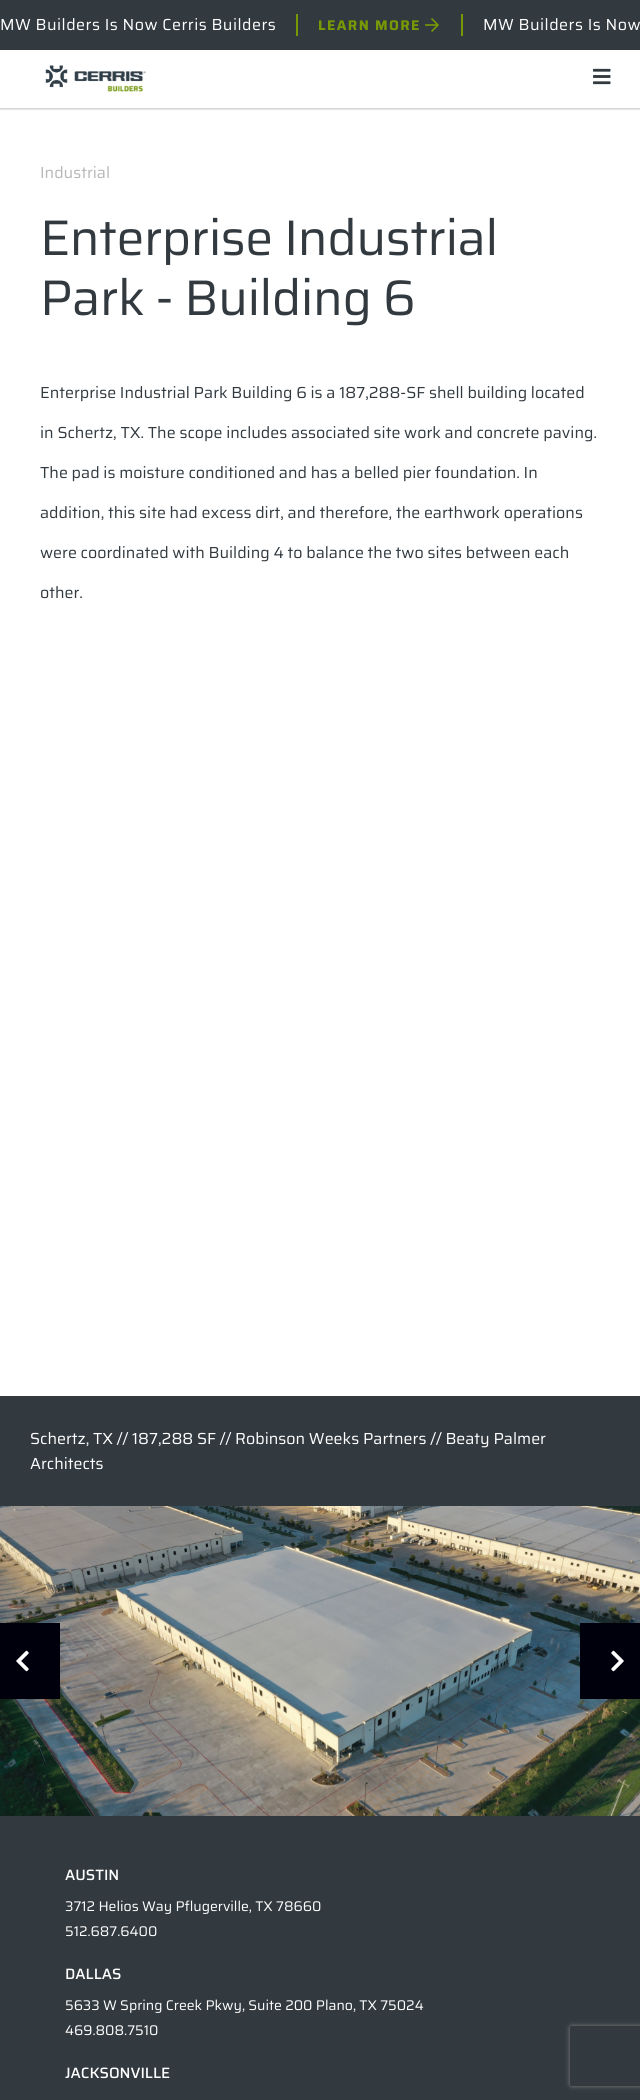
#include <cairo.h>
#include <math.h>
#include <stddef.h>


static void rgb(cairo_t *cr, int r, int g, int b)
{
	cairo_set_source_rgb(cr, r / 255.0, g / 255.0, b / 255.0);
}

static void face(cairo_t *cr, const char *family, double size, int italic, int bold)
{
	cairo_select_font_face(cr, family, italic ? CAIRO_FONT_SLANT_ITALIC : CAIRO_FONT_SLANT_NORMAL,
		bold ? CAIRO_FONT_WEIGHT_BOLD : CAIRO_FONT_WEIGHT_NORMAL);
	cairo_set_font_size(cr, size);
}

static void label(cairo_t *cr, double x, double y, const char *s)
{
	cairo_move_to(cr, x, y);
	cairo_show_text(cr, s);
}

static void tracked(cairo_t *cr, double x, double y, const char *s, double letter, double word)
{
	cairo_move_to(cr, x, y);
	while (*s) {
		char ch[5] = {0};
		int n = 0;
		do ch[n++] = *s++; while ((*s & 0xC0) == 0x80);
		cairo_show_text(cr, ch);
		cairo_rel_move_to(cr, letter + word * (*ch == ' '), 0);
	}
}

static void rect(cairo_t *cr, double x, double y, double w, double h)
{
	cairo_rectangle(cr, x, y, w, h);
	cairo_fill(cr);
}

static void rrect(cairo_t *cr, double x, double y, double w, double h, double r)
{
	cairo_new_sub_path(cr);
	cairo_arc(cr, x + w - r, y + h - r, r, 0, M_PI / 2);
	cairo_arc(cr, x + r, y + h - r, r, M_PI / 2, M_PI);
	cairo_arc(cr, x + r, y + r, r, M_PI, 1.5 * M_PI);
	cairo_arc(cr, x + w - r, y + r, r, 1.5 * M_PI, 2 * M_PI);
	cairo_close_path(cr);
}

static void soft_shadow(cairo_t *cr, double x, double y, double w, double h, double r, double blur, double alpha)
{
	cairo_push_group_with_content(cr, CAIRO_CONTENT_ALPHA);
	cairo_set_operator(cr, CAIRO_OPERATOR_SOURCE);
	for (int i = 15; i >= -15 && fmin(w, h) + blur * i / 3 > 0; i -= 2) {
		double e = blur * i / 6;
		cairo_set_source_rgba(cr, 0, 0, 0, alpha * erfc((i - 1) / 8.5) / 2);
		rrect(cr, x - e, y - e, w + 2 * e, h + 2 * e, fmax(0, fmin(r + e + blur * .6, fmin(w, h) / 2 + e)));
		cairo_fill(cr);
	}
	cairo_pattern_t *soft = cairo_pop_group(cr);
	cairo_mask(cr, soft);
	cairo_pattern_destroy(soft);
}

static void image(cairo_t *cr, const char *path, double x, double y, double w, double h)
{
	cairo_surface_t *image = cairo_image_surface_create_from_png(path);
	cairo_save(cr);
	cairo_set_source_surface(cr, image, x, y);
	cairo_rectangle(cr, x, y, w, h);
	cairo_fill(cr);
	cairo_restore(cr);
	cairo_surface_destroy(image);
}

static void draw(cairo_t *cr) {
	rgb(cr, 255, 255, 255);
	cairo_paint(cr);
	rgb(cr, 50, 58, 64);
	rect(cr, 0, 0, 640, 50);
	face(cr, "Saira", 16, 0, 0);
	rgb(cr, 255, 255, 255);
	tracked(cr, 0, 30, "MW Builders Is Now Cerris Builders", 0.5, 0);
	rgb(cr, 120, 153, 4);
	rect(cr, 296, 14, 2, 22);
	face(cr, "Saira", 14, 0, 1);
	tracked(cr, 318, 30, "LEARN MORE", 1.4, 0);
	image(cr, "image0.png", 425, 18, 14, 14);
	rect(cr, 461, 14, 2, 22);
	face(cr, "Saira", 16, 0, 0);
	rgb(cr, 255, 255, 255);
	tracked(cr, 483, 30, "MW Builders Is Now", 0.5, 0);
	rgb(cr, 0, 0, 0);
	soft_shadow(cr, 0, 51, 640, 58, 0, 1, 0.24);
	rgb(cr, 255, 255, 255);
	rect(cr, 0, 50, 640, 58);
	image(cr, "image1.png", 45, 65, 102, 27);
	image(cr, "image2.png", 593, 68, 18, 17);
	rgb(cr, 183, 183, 183);
	label(cr, 40, 178, "Industrial");
	face(cr, "Saira", 50, 0, 0);
	rgb(cr, 50, 58, 64);
	tracked(cr, 40, 255, "Enterprise Industrial", -0.5, 0);
	tracked(cr, 40, 315, "Park - Building 6", -0.5, 0);
	face(cr, "Saira", 16, 0, 0);
	label(cr, 40, 398, "Enterprise Industrial Park Building 6 is a 187,288-SF shell building located");
	label(cr, 40, 438, "in Schertz, TX. The scope includes associated site work and concrete paving.");
	label(cr, 40, 478, "The pad is moisture conditioned and has a belled pier foundation. In");
	label(cr, 40, 518, "addition, this site had excess dirt, and therefore, the earthwork operations");
	label(cr, 40, 558, "were coordinated with Building 4 to balance the two sites between each");
	label(cr, 40, 598, "other.");
	rect(cr, 0, 1396, 640, 110);
	rgb(cr, 255, 255, 255);
	label(cr, 30, 1444, "Schertz, TX // 187,288 SF // Robinson Weeks Partners // Beaty Palmer");
	label(cr, 30, 1469, "Architects");
	rgb(cr, 50, 58, 64);
	rect(cr, 0, 1815, 640, 285);
	image(cr, "image3.png", 0, 1506, 640, 310);
	rgb(cr, 0, 0, 12);
	rect(cr, 0, 1623, 60, 76);
	image(cr, "image4.png", 16, 1650, 13, 22);
	rect(cr, 580, 1623, 60, 76);
	image(cr, "image5.png", 611, 1650, 13, 22);
	face(cr, "Saira Medium", 15, 0, 0);
	rgb(cr, 255, 255, 255);
	label(cr, 65, 1880, "AUSTIN");
	face(cr, "Saira", 14, 0, 0);
	label(cr, 65, 1911, "3712 Helios Way Pflugerville, TX 78660");
	label(cr, 65, 1936, "512.687.6400");
	face(cr, "Saira Medium", 15, 0, 0);
	label(cr, 65, 1979, "DALLAS");
	face(cr, "Saira", 14, 0, 0);
	label(cr, 65, 2010, "5633 W Spring Creek Pkwy, Suite 200 Plano, TX 75024");
	label(cr, 65, 2035, "469.808.7510");
	face(cr, "Saira Medium", 15, 0, 0);
	label(cr, 65, 2078, "JACKSONVILLE");
	cairo_save(cr);
	cairo_set_fill_rule(cr, CAIRO_FILL_RULE_EVEN_ODD);
	cairo_new_path(cr);
	cairo_move_to(cr, 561, 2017);
	cairo_line_to(cr, 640, 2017);
	cairo_line_to(cr, 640, 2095);
	cairo_line_to(cr, 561, 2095);
	cairo_close_path(cr);
	cairo_move_to(cr, 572, 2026);
	cairo_line_to(cr, 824, 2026);
	cairo_curve_to(cr, 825, 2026, 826, 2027, 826, 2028);
	cairo_line_to(cr, 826, 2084);
	cairo_curve_to(cr, 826, 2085, 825, 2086, 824, 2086);
	cairo_line_to(cr, 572, 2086);
	cairo_curve_to(cr, 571, 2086, 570, 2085, 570, 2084);
	cairo_line_to(cr, 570, 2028);
	cairo_curve_to(cr, 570, 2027, 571, 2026, 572, 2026);
	cairo_close_path(cr);
	cairo_clip(cr);
	rgb(cr, 128, 128, 128);
	soft_shadow(cr, 570, 2026, 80, 60, 2, 2.5, 1);
	cairo_restore(cr);
}

int main(void) {
	cairo_surface_t *surface = cairo_image_surface_create(CAIRO_FORMAT_RGB24, 640, 2100);
	cairo_t *cr = cairo_create(surface);
	cairo_font_options_t *options = cairo_font_options_create();
	cairo_font_options_set_hint_metrics(options, CAIRO_HINT_METRICS_OFF);
	cairo_font_options_set_hint_style(options, CAIRO_HINT_STYLE_NONE);
	cairo_set_font_options(cr, options);
	cairo_set_miter_limit(cr, 4);
	draw(cr);
	cairo_surface_write_to_png(surface, "render.png");
	cairo_font_options_destroy(options);
	cairo_destroy(cr);
	cairo_surface_destroy(surface);
	return 0;
}
